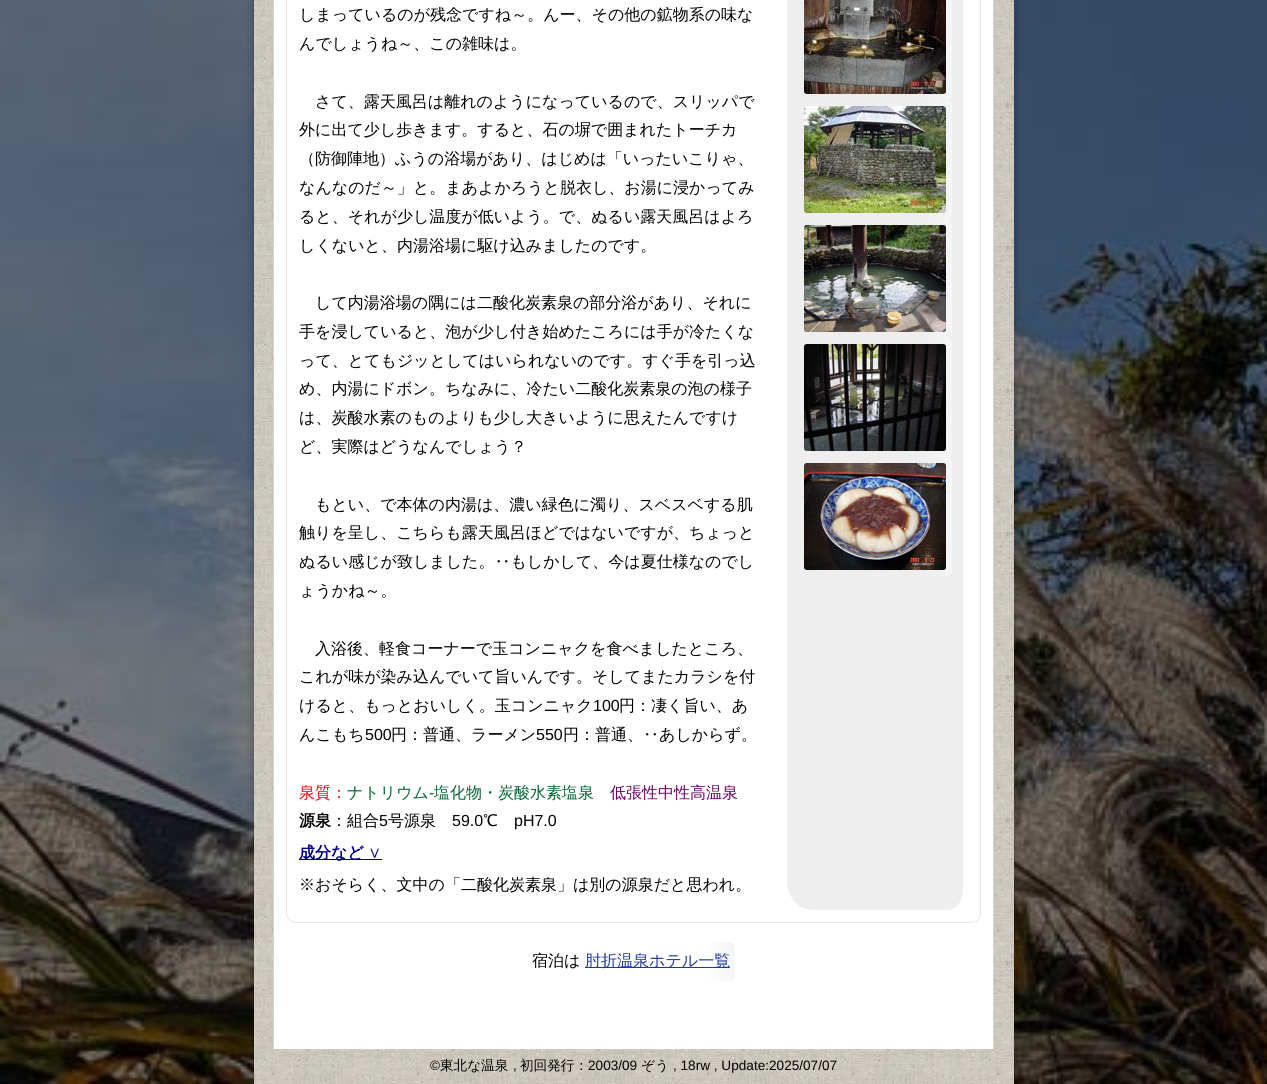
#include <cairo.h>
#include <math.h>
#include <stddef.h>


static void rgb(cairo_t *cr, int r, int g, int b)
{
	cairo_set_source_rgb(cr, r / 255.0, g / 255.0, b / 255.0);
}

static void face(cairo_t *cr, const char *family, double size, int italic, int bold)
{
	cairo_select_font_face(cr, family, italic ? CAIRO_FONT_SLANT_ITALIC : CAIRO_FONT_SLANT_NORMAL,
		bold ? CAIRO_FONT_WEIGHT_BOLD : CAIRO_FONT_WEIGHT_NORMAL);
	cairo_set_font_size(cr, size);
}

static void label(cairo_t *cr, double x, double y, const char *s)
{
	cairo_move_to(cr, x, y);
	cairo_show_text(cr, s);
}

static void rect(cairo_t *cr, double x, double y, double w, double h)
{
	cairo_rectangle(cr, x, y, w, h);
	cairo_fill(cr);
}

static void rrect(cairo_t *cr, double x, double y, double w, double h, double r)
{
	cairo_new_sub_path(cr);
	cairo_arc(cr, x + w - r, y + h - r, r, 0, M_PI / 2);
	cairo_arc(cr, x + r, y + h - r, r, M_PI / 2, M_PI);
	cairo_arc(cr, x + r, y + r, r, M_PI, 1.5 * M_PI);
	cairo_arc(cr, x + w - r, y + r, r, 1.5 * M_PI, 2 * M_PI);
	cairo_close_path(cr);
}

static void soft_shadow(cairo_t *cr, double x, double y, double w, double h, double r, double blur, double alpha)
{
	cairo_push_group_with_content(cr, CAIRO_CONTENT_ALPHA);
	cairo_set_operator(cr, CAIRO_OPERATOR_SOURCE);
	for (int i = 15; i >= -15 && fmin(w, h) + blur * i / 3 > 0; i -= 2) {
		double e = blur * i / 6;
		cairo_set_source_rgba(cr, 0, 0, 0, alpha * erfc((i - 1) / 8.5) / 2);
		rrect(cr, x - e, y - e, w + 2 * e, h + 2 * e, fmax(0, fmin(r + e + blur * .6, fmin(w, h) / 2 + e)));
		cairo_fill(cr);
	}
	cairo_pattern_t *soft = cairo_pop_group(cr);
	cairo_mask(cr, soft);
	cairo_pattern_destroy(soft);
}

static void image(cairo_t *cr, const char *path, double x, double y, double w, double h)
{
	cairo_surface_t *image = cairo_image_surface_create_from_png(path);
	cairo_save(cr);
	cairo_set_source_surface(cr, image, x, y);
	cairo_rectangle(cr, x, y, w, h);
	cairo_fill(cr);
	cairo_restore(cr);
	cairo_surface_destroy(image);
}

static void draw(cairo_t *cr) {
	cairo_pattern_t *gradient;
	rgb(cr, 255, 255, 255);
	cairo_paint(cr);
	image(cr, "image0.png", 0, 0, 1267, 1084);
	rgb(cr, 0, 0, 0);
	soft_shadow(cr, 254, -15, 760, 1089, 0, 5, 0.3);
	image(cr, "image1.png", 254, 0, 760, 1084);
	rgb(cr, 255, 255, 255);
	cairo_rectangle(cr, 273.5, -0.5, 720, 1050);
	cairo_fill_preserve(cr);
	rgb(cr, 214, 211, 206);
	cairo_set_line_width(cr, 1);
	cairo_stroke(cr);
	rrect(cr, 286.5, -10.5, 694, 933, 9.5);
	rgb(cr, 231, 230, 226);
	cairo_stroke(cr);
	cairo_save(cr);
	rrect(cr, 287, -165, 693, 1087, 9);
	cairo_clip(cr);
	rgb(cr, 255, 255, 255);
	rect(cr, 289, 0, 689, 920);
	cairo_restore(cr);
	face(cr, "WenQuanYi Zen Hei Medium", 16, 0, 0);
	rgb(cr, 0, 0, 0);
	label(cr, 299, 20, "しまっているのが残念ですね～。んー、その他の鉱物系の味な");
	label(cr, 299, 49, "んでしょうね～、この雑味は。");
	label(cr, 315, 107, "さて、露天風呂は離れのようになっているので、スリッパで");
	label(cr, 299, 135, "外に出て少し歩きます。すると、石の塀で囲まれたトーチカ");
	label(cr, 299, 164, "（防御陣地）ふうの浴場があり、はじめは「いったいこりゃ、");
	label(cr, 299, 193, "なんなのだ～」と。まあよかろうと脱衣し、お湯に浸かってみ");
	label(cr, 299, 222, "ると、それが少し温度が低いよう。で、ぬるい露天風呂はよろ");
	label(cr, 299, 251, "しくないと、内湯浴場に駆け込みましたのです。");
	label(cr, 315, 308, "して内湯浴場の隅には二酸化炭素泉の部分浴があり、それに");
	label(cr, 299, 337, "手を浸していると、泡が少し付き始めたころには手が冷たくな");
	label(cr, 299, 366, "って、とてもジッとしてはいられないのです。すぐ手を引っ込");
	label(cr, 299, 394, "め、内湯にドボン。ちなみに、冷たい二酸化炭素泉の泡の様子");
	label(cr, 299, 423, "は、炭酸水素のものよりも少し大きいように思えたんですけ");
	label(cr, 299, 452, "ど、実際はどうなんでしょう？");
	label(cr, 315, 510, "もとい、で本体の内湯は、濃い緑色に濁り、スベスベする肌");
	label(cr, 299, 538, "触りを呈し、こちらも露天風呂ほどではないですが、ちょっと");
	label(cr, 299, 567, "ぬるい感じが致しました。‥もしかして、今は夏仕様なのでし");
	label(cr, 299, 596, "ょうかね～。");
	label(cr, 315, 654, "入浴後、軽食コーナーで玉コンニャクを食べましたところ、");
	label(cr, 299, 682, "これが味が染み込んでいて旨いんです。そしてまたカラシを付");
	label(cr, 299, 711, "けると、もっとおいしく。玉コンニャク");
	face(cr, "Liberation Sans", 16, 0, 0);
	label(cr, 593, 711, "100");
	face(cr, "WenQuanYi Zen Hei Medium", 16, 0, 0);
	label(cr, 619, 711, "円：凄く旨い、あ");
	label(cr, 299, 740, "んこもち");
	face(cr, "Liberation Sans", 16, 0, 0);
	label(cr, 365, 740, "500");
	face(cr, "WenQuanYi Zen Hei Medium", 16, 0, 0);
	label(cr, 391, 740, "円：普通、ラーメン");
	face(cr, "Liberation Sans", 16, 0, 0);
	label(cr, 536, 740, "550");
	face(cr, "WenQuanYi Zen Hei Medium", 16, 0, 0);
	label(cr, 563, 740, "円：普通、‥あしからず。");
	rgb(cr, 255, 0, 0);
	label(cr, 299, 798, "泉質：");
	rgb(cr, 0, 102, 51);
	label(cr, 347, 798, "ナトリウム");
	face(cr, "Liberation Sans", 16, 0, 0);
	label(cr, 429, 798, "-");
	face(cr, "WenQuanYi Zen Hei Medium", 16, 0, 0);
	label(cr, 434, 798, "塩化物・炭酸水素塩泉");
	rgb(cr, 104, 0, 102);
	label(cr, 610, 798, "低張性中性高温泉");
	face(cr, "WenQuanYi Zen Hei", 16, 0, 1);
	rgb(cr, 0, 0, 0);
	label(cr, 299, 826, "源泉");
	face(cr, "WenQuanYi Zen Hei Medium", 16, 0, 0);
	label(cr, 331, 826, "：組合");
	face(cr, "Liberation Sans", 16, 0, 0);
	label(cr, 379, 826, "5");
	face(cr, "WenQuanYi Zen Hei Medium", 16, 0, 0);
	label(cr, 388, 826, "号源泉");
	face(cr, "Liberation Sans", 16, 0, 0);
	label(cr, 452, 826, "59.0");
	face(cr, "WenQuanYi Zen Hei Medium", 16, 0, 0);
	label(cr, 483, 826, "℃");
	face(cr, "Liberation Sans", 16, 0, 0);
	label(cr, 514, 826, "pH7.0");
	rgb(cr, 0, 0, 139);
	rect(cr, 299, 859, 83, 1);
	face(cr, "WenQuanYi Zen Hei", 16, 0, 1);
	label(cr, 299, 858, "成分など");
	face(cr, "WenQuanYi Zen Hei Medium", 16, 0, 0);
	label(cr, 368, 858, "∨");
	rgb(cr, 0, 0, 0);
	label(cr, 299, 890, "※おそらく、文中の「二酸化炭素泉」は別の源泉だと思われ。");
	rgb(cr, 238, 238, 238);
	cairo_new_path(cr);
	cairo_move_to(cr, 792, -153);
	cairo_line_to(cr, 958, -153);
	cairo_curve_to(cr, 961, -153, 963, -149, 963, -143);
	cairo_line_to(cr, 963, 890);
	cairo_curve_to(cr, 963, 901, 956, 910, 948, 910);
	cairo_line_to(cr, 812, 910);
	cairo_curve_to(cr, 798, 910, 787, 897, 787, 880);
	cairo_line_to(cr, 787, -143);
	cairo_curve_to(cr, 787, -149, 789, -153, 792, -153);
	cairo_close_path(cr);
	cairo_fill(cr);
	cairo_new_path(cr);
	cairo_move_to(cr, 792, -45);
	cairo_line_to(cr, 958, -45);
	cairo_curve_to(cr, 966.5, -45, 973, -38.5, 973, -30);
	cairo_line_to(cr, 973, 890);
	cairo_curve_to(cr, 973, 904, 962, 915, 948, 915);
	cairo_line_to(cr, 812, 915);
	cairo_curve_to(cr, 792.5, 915, 777, 899.5, 777, 880);
	cairo_line_to(cr, 777, -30);
	cairo_curve_to(cr, 777, -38.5, 783.5, -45, 792, -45);
	cairo_close_path(cr);
	rgb(cr, 255, 255, 255);
	cairo_set_line_width(cr, 10);
	cairo_stroke(cr);
	gradient = cairo_pattern_create_linear(798, 41, 952, 40);
	cairo_pattern_add_color_stop_rgba(gradient, 0.8, 0.933, 0.933, 0.933, 1);
	cairo_pattern_add_color_stop_rgba(gradient, 1, 0.957, 0.961, 0.965, 1);
	cairo_set_source(cr, gradient);
	cairo_pattern_destroy(gradient);
	cairo_new_path(cr);
	cairo_move_to(cr, 798, -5);
	cairo_line_to(cr, 947, -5);
	cairo_curve_to(cr, 950, -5, 952, -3, 952, 0);
	cairo_line_to(cr, 952, 95);
	cairo_curve_to(cr, 952, 98, 950, 100, 947, 100);
	cairo_line_to(cr, 798, 100);
	cairo_close_path(cr);
	cairo_fill(cr);
	image(cr, "image2.png", 804, 0, 142, 94);
	gradient = cairo_pattern_create_linear(798, 160, 952, 160);
	cairo_pattern_add_color_stop_rgba(gradient, 0.8, 0.933, 0.933, 0.933, 1);
	cairo_pattern_add_color_stop_rgba(gradient, 1, 0.957, 0.961, 0.965, 1);
	cairo_set_source(cr, gradient);
	cairo_pattern_destroy(gradient);
	cairo_new_path(cr);
	cairo_move_to(cr, 798, 100);
	cairo_line_to(cr, 947, 100);
	cairo_curve_to(cr, 950, 100, 952, 102, 952, 105);
	cairo_line_to(cr, 952, 214);
	cairo_curve_to(cr, 952, 217, 950, 219, 947, 219);
	cairo_line_to(cr, 798, 219);
	cairo_close_path(cr);
	cairo_fill(cr);
	image(cr, "image3.png", 804, 106, 142, 107);
	gradient = cairo_pattern_create_linear(798, 279, 952, 279);
	cairo_pattern_add_color_stop_rgba(gradient, 0.8, 0.933, 0.933, 0.933, 1);
	cairo_pattern_add_color_stop_rgba(gradient, 1, 0.957, 0.961, 0.965, 1);
	cairo_set_source(cr, gradient);
	cairo_pattern_destroy(gradient);
	cairo_new_path(cr);
	cairo_move_to(cr, 798, 219);
	cairo_line_to(cr, 947, 219);
	cairo_curve_to(cr, 950, 219, 952, 221, 952, 224);
	cairo_line_to(cr, 952, 333);
	cairo_curve_to(cr, 952, 336, 950, 338, 947, 338);
	cairo_line_to(cr, 798, 338);
	cairo_close_path(cr);
	cairo_fill(cr);
	image(cr, "image4.png", 804, 225, 142, 107);
	gradient = cairo_pattern_create_linear(798, 398, 952, 398);
	cairo_pattern_add_color_stop_rgba(gradient, 0.8, 0.933, 0.933, 0.933, 1);
	cairo_pattern_add_color_stop_rgba(gradient, 1, 0.957, 0.961, 0.965, 1);
	cairo_set_source(cr, gradient);
	cairo_pattern_destroy(gradient);
	cairo_new_path(cr);
	cairo_move_to(cr, 798, 338);
	cairo_line_to(cr, 947, 338);
	cairo_curve_to(cr, 950, 338, 952, 340, 952, 343);
	cairo_line_to(cr, 952, 452);
	cairo_curve_to(cr, 952, 455, 950, 457, 947, 457);
	cairo_line_to(cr, 798, 457);
	cairo_close_path(cr);
	cairo_fill(cr);
	image(cr, "image5.png", 804, 344, 142, 107);
	gradient = cairo_pattern_create_linear(798, 517, 952, 517);
	cairo_pattern_add_color_stop_rgba(gradient, 0.8, 0.933, 0.933, 0.933, 1);
	cairo_pattern_add_color_stop_rgba(gradient, 1, 0.957, 0.961, 0.965, 1);
	cairo_set_source(cr, gradient);
	cairo_pattern_destroy(gradient);
	cairo_new_path(cr);
	cairo_move_to(cr, 798, 457);
	cairo_line_to(cr, 947, 457);
	cairo_curve_to(cr, 950, 457, 952, 459, 952, 462);
	cairo_line_to(cr, 952, 571);
	cairo_curve_to(cr, 952, 574, 950, 576, 947, 576);
	cairo_line_to(cr, 798, 576);
	cairo_close_path(cr);
	cairo_fill(cr);
	image(cr, "image6.png", 804, 463, 142, 107);
	rgb(cr, 0, 0, 0);
	label(cr, 532, 966, "宿泊は");
	gradient = cairo_pattern_create_linear(580, 962, 735, 962);
	cairo_pattern_add_color_stop_rgba(gradient, 0.8, 1, 1, 1, 1);
	cairo_pattern_add_color_stop_rgba(gradient, 1, 0.957, 0.961, 0.965, 1);
	cairo_set_source(cr, gradient);
	cairo_pattern_destroy(gradient);
	cairo_new_path(cr);
	cairo_move_to(cr, 580, 942);
	cairo_line_to(cr, 730, 942);
	cairo_curve_to(cr, 733, 942, 735, 944, 735, 947);
	cairo_line_to(cr, 735, 976);
	cairo_curve_to(cr, 735, 979, 733, 981, 730, 981);
	cairo_line_to(cr, 580, 981);
	cairo_close_path(cr);
	cairo_fill(cr);
	rgb(cr, 29, 57, 148);
	rect(cr, 585, 967, 145, 1);
	label(cr, 585, 966, "肘折温泉ホテル一覧");
	image(cr, "image7.png", 254, 1049, 759, 2);
	face(cr, "Liberation Sans", 13.6, 0, 0);
	rgb(cr, 0, 0, 0);
	label(cr, 430, 1070, "©");
	face(cr, "WenQuanYi Zen Hei Medium", 13.6, 0, 0);
	label(cr, 440, 1070, "東北な温泉");
	face(cr, "Liberation Sans", 13.6, 0, 0);
	label(cr, 513, 1070, ",");
	face(cr, "WenQuanYi Zen Hei Medium", 13.6, 0, 0);
	label(cr, 520, 1070, "初回発行：");
	face(cr, "Liberation Sans", 13.6, 0, 0);
	label(cr, 588, 1070, "2003/09");
	face(cr, "WenQuanYi Zen Hei Medium", 13.6, 0, 0);
	label(cr, 641, 1070, "ぞう");
	face(cr, "Liberation Sans", 13.6, 0, 0);
	label(cr, 673, 1070, ", 18rw , Update:2025/07/07");
}

int main(void) {
	cairo_surface_t *surface = cairo_image_surface_create(CAIRO_FORMAT_RGB24, 1267, 1084);
	cairo_t *cr = cairo_create(surface);
	cairo_font_options_t *options = cairo_font_options_create();
	cairo_font_options_set_hint_metrics(options, CAIRO_HINT_METRICS_OFF);
	cairo_font_options_set_hint_style(options, CAIRO_HINT_STYLE_NONE);
	cairo_set_font_options(cr, options);
	cairo_set_miter_limit(cr, 4);
	draw(cr);
	cairo_surface_write_to_png(surface, "render.png");
	cairo_font_options_destroy(options);
	cairo_destroy(cr);
	cairo_surface_destroy(surface);
	return 0;
}
